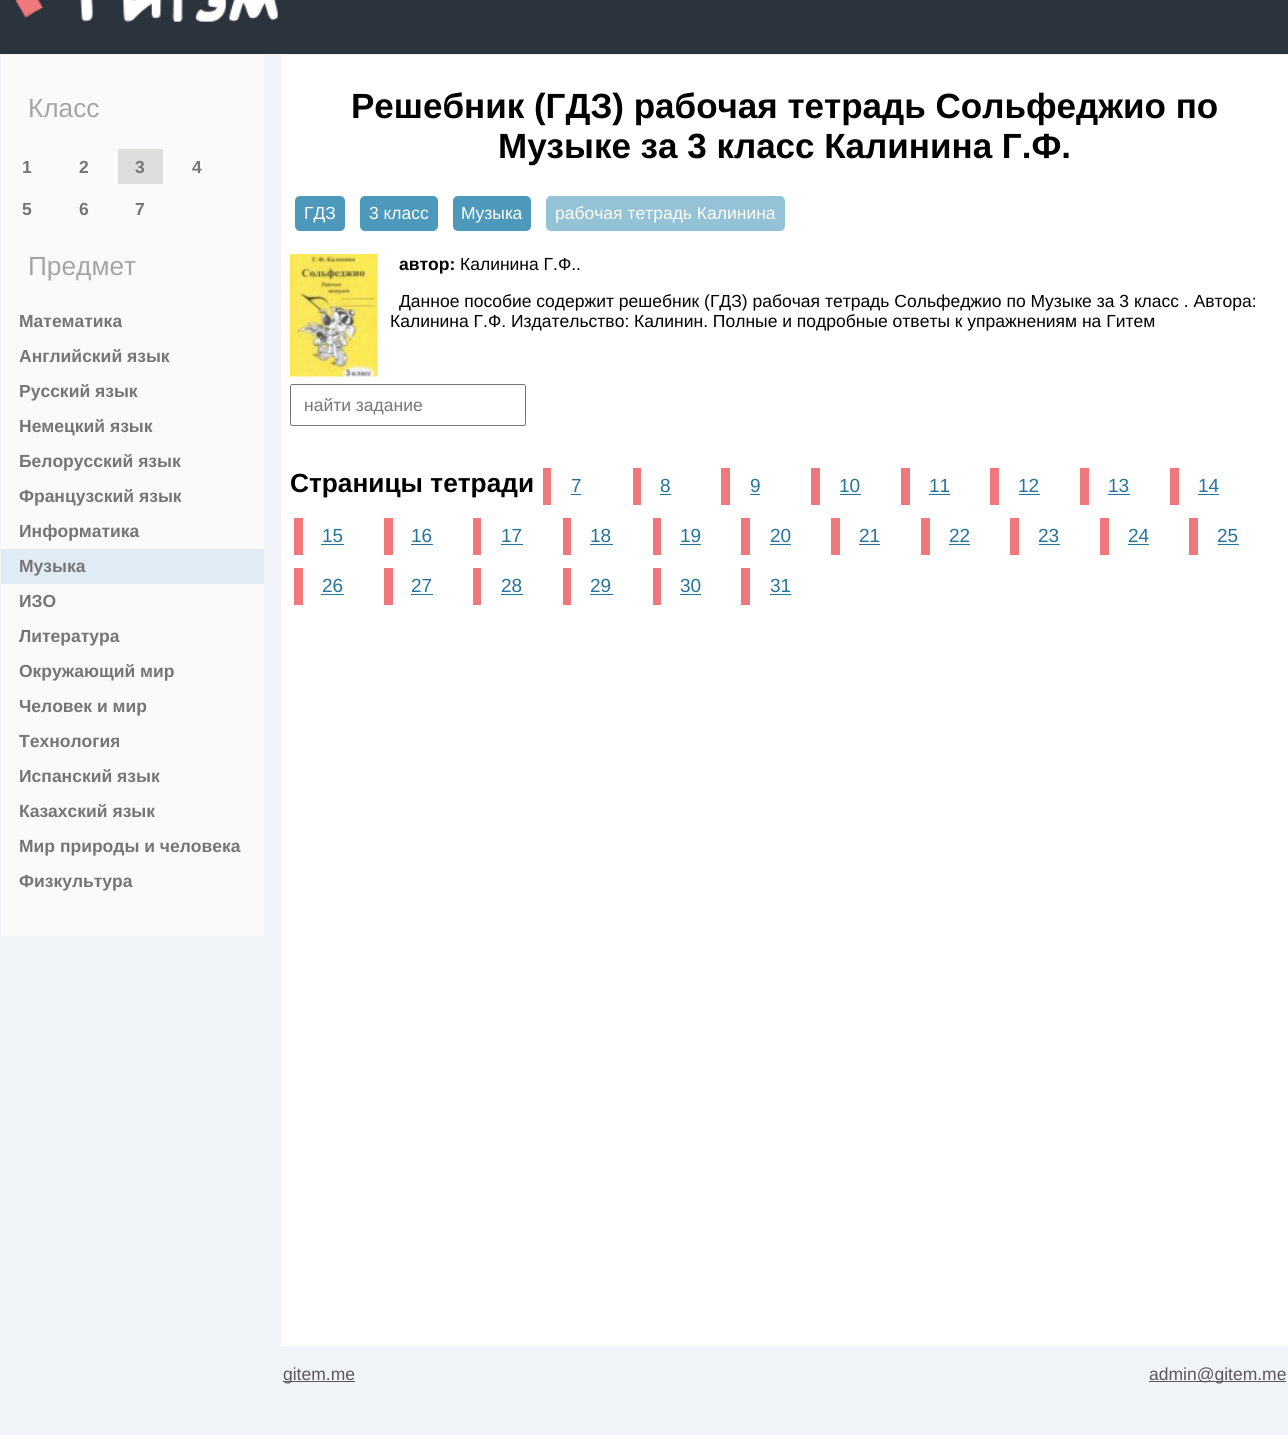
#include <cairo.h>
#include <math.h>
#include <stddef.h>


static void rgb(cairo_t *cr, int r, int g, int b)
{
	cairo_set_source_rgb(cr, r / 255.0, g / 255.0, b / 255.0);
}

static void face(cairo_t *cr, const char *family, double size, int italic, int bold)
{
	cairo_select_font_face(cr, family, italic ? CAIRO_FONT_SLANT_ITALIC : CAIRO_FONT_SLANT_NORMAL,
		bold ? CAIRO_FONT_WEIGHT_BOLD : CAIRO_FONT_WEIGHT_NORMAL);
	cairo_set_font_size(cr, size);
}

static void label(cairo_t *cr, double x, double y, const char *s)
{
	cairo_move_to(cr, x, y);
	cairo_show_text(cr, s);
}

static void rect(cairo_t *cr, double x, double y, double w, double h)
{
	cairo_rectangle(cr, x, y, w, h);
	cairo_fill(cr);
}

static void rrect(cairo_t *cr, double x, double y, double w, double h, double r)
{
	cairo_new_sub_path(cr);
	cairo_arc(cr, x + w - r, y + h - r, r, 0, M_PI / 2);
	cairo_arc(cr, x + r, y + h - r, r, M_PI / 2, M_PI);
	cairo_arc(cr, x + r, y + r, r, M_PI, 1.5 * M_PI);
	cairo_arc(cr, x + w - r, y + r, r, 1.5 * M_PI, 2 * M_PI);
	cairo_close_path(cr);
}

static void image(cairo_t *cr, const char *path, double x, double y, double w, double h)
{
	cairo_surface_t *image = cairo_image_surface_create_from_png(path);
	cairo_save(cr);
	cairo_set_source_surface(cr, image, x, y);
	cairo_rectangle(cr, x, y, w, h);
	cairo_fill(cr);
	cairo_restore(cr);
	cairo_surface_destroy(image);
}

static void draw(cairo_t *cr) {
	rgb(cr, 241, 244, 249);
	cairo_paint(cr);
	rgb(cr, 43, 51, 60);
	rect(cr, 0, 0, 1288, 54);
	image(cr, "image0.png", 15, 0, 263, 22);
	rgb(cr, 248, 250, 252);
	rect(cr, 1, 55, 263, 881);
	face(cr, "Liberation Sans", 26.25, 0, 0);
	rgb(cr, 165, 165, 165);
	label(cr, 28, 117, "Класс");
	face(cr, "Liberation Sans", 17.5, 0, 1);
	rgb(cr, 117, 117, 117);
	label(cr, 22, 173, "1");
	label(cr, 79, 173, "2");
	rgb(cr, 221, 221, 221);
	rect(cr, 118, 149, 45, 35);
	rgb(cr, 117, 117, 117);
	label(cr, 135, 173, "3");
	label(cr, 192, 173, "4");
	label(cr, 22, 215, "5");
	label(cr, 79, 215, "6");
	label(cr, 135, 215, "7");
	face(cr, "Liberation Sans", 26.25, 0, 0);
	rgb(cr, 165, 165, 165);
	label(cr, 28, 275, "Предмет");
	face(cr, "Liberation Sans", 17.5, 0, 1);
	rgb(cr, 117, 117, 117);
	label(cr, 19, 327, "Математика");
	label(cr, 19, 362, "Английский язык");
	label(cr, 19, 397, "Русский язык");
	label(cr, 19, 432, "Немецкий язык");
	label(cr, 19, 467, "Белорусский язык");
	label(cr, 19, 502, "Французский язык");
	label(cr, 19, 537, "Информатика");
	rgb(cr, 225, 235, 245);
	rect(cr, 1, 549, 263, 35);
	rgb(cr, 117, 117, 117);
	label(cr, 19, 572, "Музыка");
	label(cr, 19, 607, "ИЗО");
	label(cr, 19, 642, "Литература");
	label(cr, 19, 677, "Окружающий мир");
	label(cr, 19, 712, "Человек и мир");
	label(cr, 19, 747, "Технология");
	label(cr, 19, 782, "Испанский язык");
	label(cr, 19, 817, "Казахский язык");
	label(cr, 19, 852, "Мир природы и человека");
	label(cr, 19, 887, "Физкультура");
	rgb(cr, 255, 255, 255);
	rect(cr, 281, 55, 1007, 1291);
	face(cr, "Liberation Sans", 35, 0, 1);
	rgb(cr, 0, 0, 0);
	label(cr, 351, 118, "Решебник (ГДЗ) рабочая тетрадь Сольфеджио по");
	label(cr, 498, 158, "Музыке за 3 класс Калинина Г.Ф.");
	rgb(cr, 76, 153, 187);
	rrect(cr, 295, 196, 50, 35, 5);
	cairo_fill(cr);
	face(cr, "Liberation Sans", 17.5, 0, 0);
	rgb(cr, 255, 255, 255);
	label(cr, 304, 219, "ГДЗ");
	rgb(cr, 76, 153, 187);
	rrect(cr, 360, 196, 78, 35, 5);
	cairo_fill(cr);
	rgb(cr, 255, 255, 255);
	label(cr, 369, 219, "3 класс");
	rgb(cr, 76, 153, 187);
	rrect(cr, 453, 196, 78, 35, 5);
	cairo_fill(cr);
	rgb(cr, 255, 255, 255);
	label(cr, 461, 219, "Музыка");
	rgb(cr, 148, 194, 214);
	rrect(cr, 546, 196, 239, 35, 5);
	cairo_fill(cr);
	rgb(cr, 255, 255, 255);
	label(cr, 555, 219, "рабочая тетрадь Калинина");
	image(cr, "image1.png", 290, 254, 88, 123);
	face(cr, "Liberation Sans", 17.5, 0, 1);
	rgb(cr, 0, 0, 0);
	label(cr, 399, 270, "автор:");
	face(cr, "Liberation Sans", 17.5, 0, 0);
	label(cr, 460, 270, "Калинина Г.Ф..");
	label(cr, 399, 307, "Данное пособие содержит решебник (ГДЗ) рабочая тетрадь Сольфеджио по Музыке за 3 класс . Автора:");
	label(cr, 390, 327, "Калинина Г.Ф. Издательство: Калинин. Полные и подробные ответы к упражнениям на Гитем");
	rrect(cr, 290.5, 384.5, 235, 41, 2);
	rgb(cr, 118, 118, 118);
	cairo_set_line_width(cr, 1);
	cairo_stroke(cr);
	rgb(cr, 117, 117, 117);
	label(cr, 304, 411, "найти задание");
	face(cr, "Liberation Sans", 26.25, 0, 1);
	rgb(cr, 0, 0, 0);
	label(cr, 290, 492, "Страницы тетради");
	rgb(cr, 238, 120, 123);
	rect(cr, 543, 468, 8, 37);
	face(cr, "Liberation Sans", 19, 0, 0);
	rgb(cr, 36, 116, 156);
	label(cr, 571, 492, "7");
	rect(cr, 571, 494, 10, 1);
	rgb(cr, 238, 120, 123);
	rect(cr, 633, 468, 8, 37);
	rgb(cr, 36, 116, 156);
	label(cr, 660, 492, "8");
	rect(cr, 660, 494, 11, 1);
	rgb(cr, 238, 120, 123);
	rect(cr, 721, 468, 9, 37);
	rgb(cr, 36, 116, 156);
	label(cr, 750, 492, "9");
	rect(cr, 750, 494, 10, 1);
	rgb(cr, 238, 120, 123);
	rect(cr, 811, 468, 9, 37);
	rgb(cr, 36, 116, 156);
	label(cr, 839, 492, "10");
	rect(cr, 840, 494, 21, 1);
	rgb(cr, 238, 120, 123);
	rect(cr, 901, 468, 9, 37);
	rgb(cr, 36, 116, 156);
	label(cr, 929, 492, "11");
	rect(cr, 929, 494, 21, 1);
	rgb(cr, 238, 120, 123);
	rect(cr, 990, 468, 9, 37);
	rgb(cr, 36, 116, 156);
	label(cr, 1018, 492, "12");
	rect(cr, 1019, 494, 21, 1);
	rgb(cr, 238, 120, 123);
	rect(cr, 1080, 468, 9, 37);
	rgb(cr, 36, 116, 156);
	label(cr, 1108, 492, "13");
	rect(cr, 1108, 494, 22, 1);
	rgb(cr, 238, 120, 123);
	rect(cr, 1170, 468, 9, 37);
	rgb(cr, 36, 116, 156);
	label(cr, 1198, 492, "14");
	rect(cr, 1198, 494, 21, 1);
	rgb(cr, 238, 120, 123);
	rect(cr, 294, 518, 9, 37);
	rgb(cr, 36, 116, 156);
	label(cr, 322, 542, "15");
	rect(cr, 321, 544, 23, 1);
	rgb(cr, 238, 120, 123);
	rect(cr, 384, 518, 9, 37);
	rgb(cr, 36, 116, 156);
	label(cr, 411, 542, "16");
	rect(cr, 411, 544, 22, 1);
	rgb(cr, 238, 120, 123);
	rect(cr, 473, 518, 8, 37);
	rgb(cr, 36, 116, 156);
	label(cr, 501, 542, "17");
	rect(cr, 501, 544, 22, 1);
	rgb(cr, 238, 120, 123);
	rect(cr, 563, 518, 8, 37);
	rgb(cr, 36, 116, 156);
	label(cr, 590, 542, "18");
	rect(cr, 590, 544, 23, 1);
	rgb(cr, 238, 120, 123);
	rect(cr, 653, 518, 8, 37);
	rgb(cr, 36, 116, 156);
	label(cr, 680, 542, "19");
	rect(cr, 680, 544, 21, 1);
	rgb(cr, 238, 120, 123);
	rect(cr, 741, 518, 9, 37);
	rgb(cr, 36, 116, 156);
	label(cr, 770, 542, "20");
	rect(cr, 770, 544, 21, 1);
	rgb(cr, 238, 120, 123);
	rect(cr, 831, 518, 9, 37);
	rgb(cr, 36, 116, 156);
	label(cr, 859, 542, "21");
	rect(cr, 859, 544, 21, 1);
	rgb(cr, 238, 120, 123);
	rect(cr, 921, 518, 9, 37);
	rgb(cr, 36, 116, 156);
	label(cr, 949, 542, "22");
	rect(cr, 949, 544, 21, 1);
	rgb(cr, 238, 120, 123);
	rect(cr, 1010, 518, 9, 37);
	rgb(cr, 36, 116, 156);
	label(cr, 1038, 542, "23");
	rect(cr, 1039, 544, 21, 1);
	rgb(cr, 238, 120, 123);
	rect(cr, 1100, 518, 9, 37);
	rgb(cr, 36, 116, 156);
	label(cr, 1128, 542, "24");
	rect(cr, 1128, 544, 21, 1);
	rgb(cr, 238, 120, 123);
	rect(cr, 1189, 518, 9, 37);
	rgb(cr, 36, 116, 156);
	label(cr, 1217, 542, "25");
	rect(cr, 1218, 544, 21, 1);
	rgb(cr, 238, 120, 123);
	rect(cr, 294, 568, 9, 37);
	rgb(cr, 36, 116, 156);
	label(cr, 322, 592, "26");
	rect(cr, 321, 594, 23, 1);
	rgb(cr, 238, 120, 123);
	rect(cr, 384, 568, 9, 37);
	rgb(cr, 36, 116, 156);
	label(cr, 411, 592, "27");
	rect(cr, 411, 594, 22, 1);
	rgb(cr, 238, 120, 123);
	rect(cr, 473, 568, 8, 37);
	rgb(cr, 36, 116, 156);
	label(cr, 501, 592, "28");
	rect(cr, 501, 594, 22, 1);
	rgb(cr, 238, 120, 123);
	rect(cr, 563, 568, 8, 37);
	rgb(cr, 36, 116, 156);
	label(cr, 590, 592, "29");
	rect(cr, 590, 594, 23, 1);
	rgb(cr, 238, 120, 123);
	rect(cr, 653, 568, 8, 37);
	rgb(cr, 36, 116, 156);
	label(cr, 680, 592, "30");
	rect(cr, 680, 594, 21, 1);
	rgb(cr, 238, 120, 123);
	rect(cr, 741, 568, 9, 37);
	rgb(cr, 36, 116, 156);
	label(cr, 770, 592, "31");
	rect(cr, 770, 594, 21, 1);
	rgb(cr, 88, 88, 88);
	rect(cr, 283, 1381, 72, 1);
	face(cr, "Liberation Sans", 17.5, 0, 0);
	label(cr, 283, 1380, "gitem.me");
	rect(cr, 1149, 1381, 137, 1);
	label(cr, 1149, 1380, "admin@gitem.me");
}

int main(void) {
	cairo_surface_t *surface = cairo_image_surface_create(CAIRO_FORMAT_RGB24, 1288, 1435);
	cairo_t *cr = cairo_create(surface);
	cairo_font_options_t *options = cairo_font_options_create();
	cairo_font_options_set_hint_metrics(options, CAIRO_HINT_METRICS_OFF);
	cairo_font_options_set_hint_style(options, CAIRO_HINT_STYLE_NONE);
	cairo_set_font_options(cr, options);
	cairo_set_miter_limit(cr, 4);
	draw(cr);
	cairo_surface_write_to_png(surface, "render.png");
	cairo_font_options_destroy(options);
	cairo_destroy(cr);
	cairo_surface_destroy(surface);
	return 0;
}
